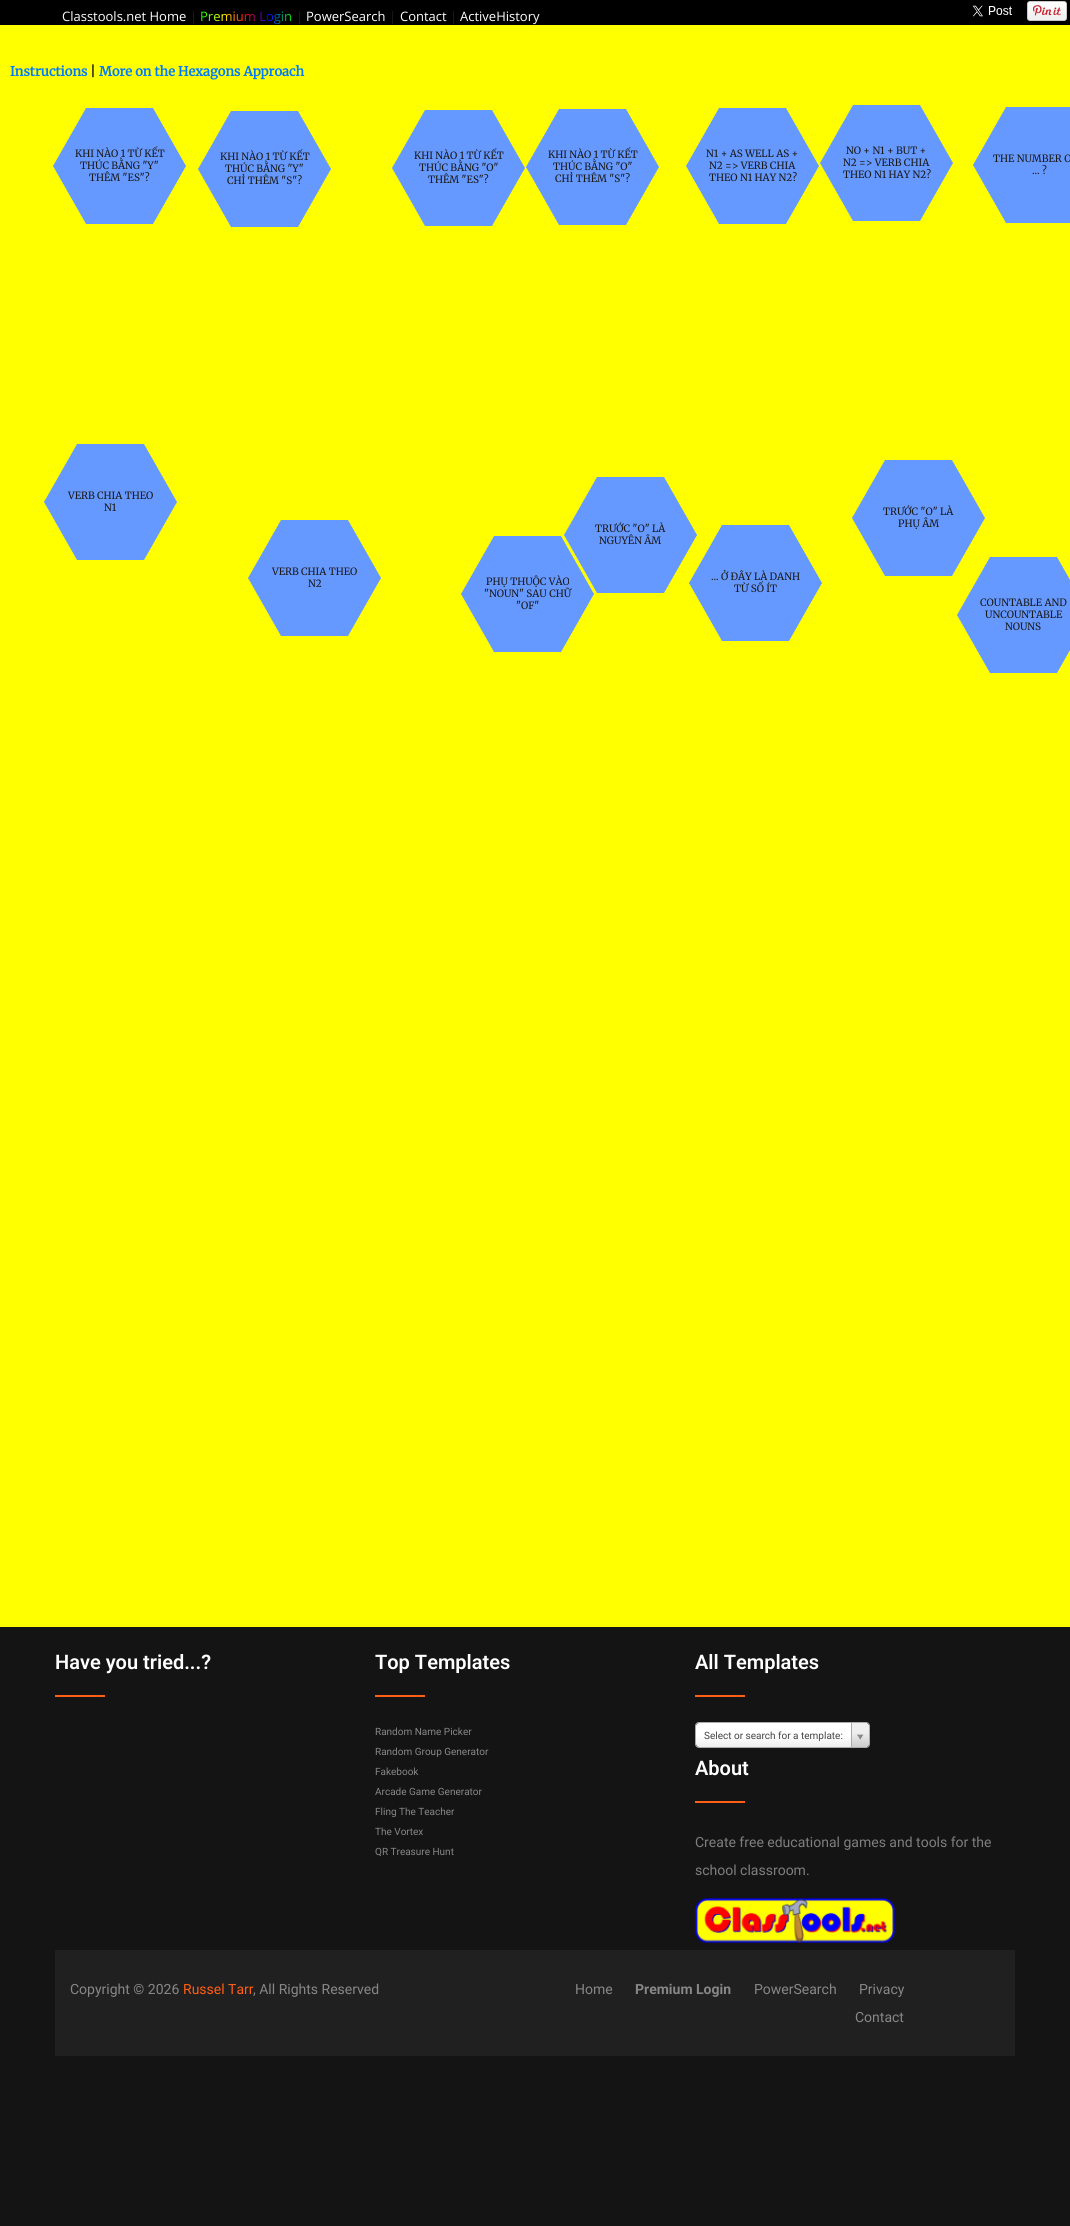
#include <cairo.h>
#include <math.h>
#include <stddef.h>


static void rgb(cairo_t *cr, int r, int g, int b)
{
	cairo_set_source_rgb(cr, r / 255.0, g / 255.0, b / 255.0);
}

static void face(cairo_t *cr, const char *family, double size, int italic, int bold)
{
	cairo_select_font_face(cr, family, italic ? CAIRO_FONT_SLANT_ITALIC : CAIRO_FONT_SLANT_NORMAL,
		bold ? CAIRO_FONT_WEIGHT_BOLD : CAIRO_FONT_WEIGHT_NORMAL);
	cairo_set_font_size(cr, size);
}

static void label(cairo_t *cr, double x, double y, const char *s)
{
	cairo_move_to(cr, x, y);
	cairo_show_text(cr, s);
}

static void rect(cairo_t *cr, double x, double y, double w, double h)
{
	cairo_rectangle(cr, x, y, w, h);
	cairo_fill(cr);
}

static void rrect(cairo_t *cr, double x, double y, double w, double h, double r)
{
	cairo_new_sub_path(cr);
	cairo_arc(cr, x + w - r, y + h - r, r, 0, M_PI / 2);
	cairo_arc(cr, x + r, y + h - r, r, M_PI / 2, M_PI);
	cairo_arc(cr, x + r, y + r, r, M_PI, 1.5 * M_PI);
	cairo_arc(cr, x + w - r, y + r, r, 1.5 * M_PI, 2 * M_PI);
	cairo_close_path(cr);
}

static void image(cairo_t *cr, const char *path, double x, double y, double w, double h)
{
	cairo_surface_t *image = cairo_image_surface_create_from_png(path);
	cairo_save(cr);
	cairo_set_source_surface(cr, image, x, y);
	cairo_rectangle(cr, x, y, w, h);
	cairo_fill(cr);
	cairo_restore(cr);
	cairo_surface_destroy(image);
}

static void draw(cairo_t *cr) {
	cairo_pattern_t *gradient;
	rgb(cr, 255, 255, 0);
	cairo_paint(cr);
	rgb(cr, 0, 0, 0);
	rect(cr, 0, 0, 1070, 25);
	face(cr, "Open Sans", 13, 0, 0);
	rgb(cr, 255, 255, 255);
	label(cr, 62, 21, "Classtools.net Home");
	rgb(cr, 26, 26, 26);
	label(cr, 190, 21, "|");
	gradient = cairo_pattern_create_linear(200, 16, 292, 16);
	cairo_pattern_add_color_stop_rgba(gradient, 0, 0, 1, 0, 1);
	cairo_pattern_add_color_stop_rgba(gradient, 0.25, 1, 1, 0, 1);
	cairo_pattern_add_color_stop_rgba(gradient, 0.5, 1, 0, 0, 1);
	cairo_pattern_add_color_stop_rgba(gradient, 0.75, 0, 0, 1, 1);
	cairo_pattern_add_color_stop_rgba(gradient, 1, 0, 1, 0, 1);
	cairo_set_source(cr, gradient);
	cairo_pattern_destroy(gradient);
	label(cr, 200, 21, "Premium Login");
	rgb(cr, 26, 26, 26);
	label(cr, 296, 21, "|");
	rgb(cr, 255, 255, 255);
	label(cr, 306, 21, "PowerSearch");
	rgb(cr, 26, 26, 26);
	label(cr, 389, 21, "|");
	rgb(cr, 255, 255, 255);
	label(cr, 400, 21, "Contact");
	rgb(cr, 26, 26, 26);
	label(cr, 450, 21, "|");
	rgb(cr, 255, 255, 255);
	label(cr, 460, 21, "ActiveHistory");
	image(cr, "image0.png", 972, 5, 40, 12);
	image(cr, "image1.png", 1027, 1, 40, 20);
	face(cr, "Merriweather", 13, 0, 1);
	rgb(cr, 0, 123, 255);
	label(cr, 10, 76, "Instructions");
	rgb(cr, 26, 26, 26);
	label(cr, 90, 76, "|");
	rgb(cr, 0, 123, 255);
	label(cr, 99, 76, "More on the Hexagons Approach");
	rgb(cr, 102, 153, 255);
	rect(cr, 86, 108, 67, 116);
	cairo_new_path(cr);
	cairo_move_to(cr, 53, 166);
	cairo_line_to(cr, 86, 108);
	cairo_line_to(cr, 186, 166);
	cairo_line_to(cr, 153, 224);
	cairo_close_path(cr);
	cairo_fill(cr);
	cairo_new_path(cr);
	cairo_move_to(cr, 153, 108);
	cairo_line_to(cr, 186, 166);
	cairo_line_to(cr, 86, 224);
	cairo_line_to(cr, 53, 166);
	cairo_close_path(cr);
	cairo_fill(cr);
	face(cr, "Merriweather Light", 10, 0, 0);
	rgb(cr, 26, 26, 26);
	label(cr, 75, 157, "KHI NÀO 1 TỪ KẾT");
	label(cr, 80, 169, "THÚC BẰNG \"Y\"");
	label(cr, 89, 181, "THÊM \"ES\"?");
	rgb(cr, 102, 153, 255);
	rect(cr, 231, 111, 67, 116);
	cairo_new_path(cr);
	cairo_move_to(cr, 198, 169);
	cairo_line_to(cr, 231, 111);
	cairo_line_to(cr, 331, 169);
	cairo_line_to(cr, 298, 227);
	cairo_close_path(cr);
	cairo_fill(cr);
	cairo_new_path(cr);
	cairo_move_to(cr, 298, 111);
	cairo_line_to(cr, 331, 169);
	cairo_line_to(cr, 231, 227);
	cairo_line_to(cr, 198, 169);
	cairo_close_path(cr);
	cairo_fill(cr);
	rgb(cr, 26, 26, 26);
	label(cr, 220, 160, "KHI NÀO 1 TỪ KẾT");
	label(cr, 225, 172, "THÚC BẰNG \"Y\"");
	label(cr, 227, 184, "CHỈ THÊM \"S\"?");
	rgb(cr, 102, 153, 255);
	rect(cr, 425, 110, 67, 116);
	cairo_new_path(cr);
	cairo_move_to(cr, 392, 168);
	cairo_line_to(cr, 425, 110);
	cairo_line_to(cr, 525, 168);
	cairo_line_to(cr, 492, 226);
	cairo_close_path(cr);
	cairo_fill(cr);
	cairo_new_path(cr);
	cairo_move_to(cr, 492, 110);
	cairo_line_to(cr, 525, 168);
	cairo_line_to(cr, 425, 226);
	cairo_line_to(cr, 392, 168);
	cairo_close_path(cr);
	cairo_fill(cr);
	rgb(cr, 26, 26, 26);
	label(cr, 414, 159, "KHI NÀO 1 TỪ KẾT");
	label(cr, 419, 171, "THÚC BẰNG \"O\"");
	label(cr, 428, 183, "THÊM \"ES\"?");
	rgb(cr, 102, 153, 255);
	rect(cr, 559, 109, 67, 116);
	cairo_new_path(cr);
	cairo_move_to(cr, 526, 167);
	cairo_line_to(cr, 559, 109);
	cairo_line_to(cr, 659, 167);
	cairo_line_to(cr, 626, 225);
	cairo_close_path(cr);
	cairo_fill(cr);
	cairo_new_path(cr);
	cairo_move_to(cr, 626, 109);
	cairo_line_to(cr, 659, 167);
	cairo_line_to(cr, 559, 225);
	cairo_line_to(cr, 526, 167);
	cairo_close_path(cr);
	cairo_fill(cr);
	rgb(cr, 26, 26, 26);
	label(cr, 548, 158, "KHI NÀO 1 TỪ KẾT");
	label(cr, 553, 170, "THÚC BẰNG \"O\"");
	label(cr, 555, 182, "CHỈ THÊM \"S\"?");
	rgb(cr, 102, 153, 255);
	rect(cr, 719, 108, 67, 116);
	cairo_new_path(cr);
	cairo_move_to(cr, 686, 166);
	cairo_line_to(cr, 719, 108);
	cairo_line_to(cr, 819, 166);
	cairo_line_to(cr, 786, 224);
	cairo_close_path(cr);
	cairo_fill(cr);
	cairo_new_path(cr);
	cairo_move_to(cr, 786, 108);
	cairo_line_to(cr, 819, 166);
	cairo_line_to(cr, 719, 224);
	cairo_line_to(cr, 686, 166);
	cairo_close_path(cr);
	cairo_fill(cr);
	rgb(cr, 26, 26, 26);
	label(cr, 706, 157, "N1 + AS WELL AS +");
	label(cr, 709, 169, "N2 => VERB CHIA");
	label(cr, 709, 181, "THEO N1 HAY N2?");
	rgb(cr, 102, 153, 255);
	rect(cr, 853, 105, 67, 116);
	cairo_new_path(cr);
	cairo_move_to(cr, 820, 163);
	cairo_line_to(cr, 853, 105);
	cairo_line_to(cr, 953, 163);
	cairo_line_to(cr, 920, 221);
	cairo_close_path(cr);
	cairo_fill(cr);
	cairo_new_path(cr);
	cairo_move_to(cr, 920, 105);
	cairo_line_to(cr, 953, 163);
	cairo_line_to(cr, 853, 221);
	cairo_line_to(cr, 820, 163);
	cairo_close_path(cr);
	cairo_fill(cr);
	rgb(cr, 26, 26, 26);
	label(cr, 846, 154, "NO + N1 + BUT +");
	label(cr, 843, 166, "N2 => VERB CHIA");
	label(cr, 843, 178, "THEO N1 HAY N2?");
	rgb(cr, 102, 153, 255);
	rect(cr, 1006, 107, 64, 116);
	cairo_new_path(cr);
	cairo_move_to(cr, 973, 165);
	cairo_line_to(cr, 1006, 107);
	cairo_line_to(cr, 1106, 165);
	cairo_line_to(cr, 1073, 223);
	cairo_close_path(cr);
	cairo_fill(cr);
	cairo_new_path(cr);
	cairo_move_to(cr, 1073, 107);
	cairo_line_to(cr, 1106, 165);
	cairo_line_to(cr, 1006, 223);
	cairo_line_to(cr, 973, 165);
	cairo_close_path(cr);
	cairo_fill(cr);
	rgb(cr, 26, 26, 26);
	label(cr, 993, 162, "THE NUMBER O");
	label(cr, 1032, 174, "... ?");
	rgb(cr, 102, 153, 255);
	rect(cr, 77, 444, 67, 116);
	cairo_new_path(cr);
	cairo_move_to(cr, 44, 502);
	cairo_line_to(cr, 77, 444);
	cairo_line_to(cr, 177, 502);
	cairo_line_to(cr, 144, 560);
	cairo_close_path(cr);
	cairo_fill(cr);
	cairo_new_path(cr);
	cairo_move_to(cr, 144, 444);
	cairo_line_to(cr, 177, 502);
	cairo_line_to(cr, 77, 560);
	cairo_line_to(cr, 44, 502);
	cairo_close_path(cr);
	cairo_fill(cr);
	rgb(cr, 26, 26, 26);
	label(cr, 68, 499, "VERB CHIA THEO");
	label(cr, 104, 511, "N1");
	rgb(cr, 102, 153, 255);
	rect(cr, 885, 460, 67, 116);
	cairo_new_path(cr);
	cairo_move_to(cr, 852, 518);
	cairo_line_to(cr, 885, 460);
	cairo_line_to(cr, 985, 518);
	cairo_line_to(cr, 952, 576);
	cairo_close_path(cr);
	cairo_fill(cr);
	cairo_new_path(cr);
	cairo_move_to(cr, 952, 460);
	cairo_line_to(cr, 985, 518);
	cairo_line_to(cr, 885, 576);
	cairo_line_to(cr, 852, 518);
	cairo_close_path(cr);
	cairo_fill(cr);
	rgb(cr, 26, 26, 26);
	label(cr, 883, 515, "TRƯỚC \"O\" LÀ");
	label(cr, 898, 527, "PHỤ ÂM");
	rgb(cr, 102, 153, 255);
	rect(cr, 597, 477, 67, 116);
	cairo_new_path(cr);
	cairo_move_to(cr, 564, 535);
	cairo_line_to(cr, 597, 477);
	cairo_line_to(cr, 697, 535);
	cairo_line_to(cr, 664, 593);
	cairo_close_path(cr);
	cairo_fill(cr);
	cairo_new_path(cr);
	cairo_move_to(cr, 664, 477);
	cairo_line_to(cr, 697, 535);
	cairo_line_to(cr, 597, 593);
	cairo_line_to(cr, 564, 535);
	cairo_close_path(cr);
	cairo_fill(cr);
	rgb(cr, 26, 26, 26);
	label(cr, 595, 532, "TRƯỚC \"O\" LÀ");
	label(cr, 599, 544, "NGUYÊN ÂM");
	rgb(cr, 102, 153, 255);
	rect(cr, 281, 520, 67, 116);
	cairo_new_path(cr);
	cairo_move_to(cr, 248, 578);
	cairo_line_to(cr, 281, 520);
	cairo_line_to(cr, 381, 578);
	cairo_line_to(cr, 348, 636);
	cairo_close_path(cr);
	cairo_fill(cr);
	cairo_new_path(cr);
	cairo_move_to(cr, 348, 520);
	cairo_line_to(cr, 381, 578);
	cairo_line_to(cr, 281, 636);
	cairo_line_to(cr, 248, 578);
	cairo_close_path(cr);
	cairo_fill(cr);
	rgb(cr, 26, 26, 26);
	label(cr, 272, 575, "VERB CHIA THEO");
	label(cr, 308, 587, "N2");
	rgb(cr, 102, 153, 255);
	rect(cr, 494, 536, 67, 116);
	cairo_new_path(cr);
	cairo_move_to(cr, 461, 594);
	cairo_line_to(cr, 494, 536);
	cairo_line_to(cr, 594, 594);
	cairo_line_to(cr, 561, 652);
	cairo_close_path(cr);
	cairo_fill(cr);
	cairo_new_path(cr);
	cairo_move_to(cr, 561, 536);
	cairo_line_to(cr, 594, 594);
	cairo_line_to(cr, 494, 652);
	cairo_line_to(cr, 461, 594);
	cairo_close_path(cr);
	cairo_fill(cr);
	rgb(cr, 26, 26, 26);
	label(cr, 486, 585, "PHỤ THUỘC VÀO");
	label(cr, 484, 597, "\"NOUN\" SAU CHỮ");
	label(cr, 516, 609, "\"OF\"");
	rgb(cr, 102, 153, 255);
	rect(cr, 722, 525, 67, 116);
	cairo_new_path(cr);
	cairo_move_to(cr, 689, 583);
	cairo_line_to(cr, 722, 525);
	cairo_line_to(cr, 822, 583);
	cairo_line_to(cr, 789, 641);
	cairo_close_path(cr);
	cairo_fill(cr);
	cairo_new_path(cr);
	cairo_move_to(cr, 789, 525);
	cairo_line_to(cr, 822, 583);
	cairo_line_to(cr, 722, 641);
	cairo_line_to(cr, 689, 583);
	cairo_close_path(cr);
	cairo_fill(cr);
	rgb(cr, 26, 26, 26);
	label(cr, 711, 580, "... Ở ĐÂY LÀ DANH");
	label(cr, 734, 592, "TỪ SỐ ÍT");
	rgb(cr, 102, 153, 255);
	rect(cr, 990, 557, 67, 116);
	cairo_new_path(cr);
	cairo_move_to(cr, 957, 615);
	cairo_line_to(cr, 990, 557);
	cairo_line_to(cr, 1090, 615);
	cairo_line_to(cr, 1057, 673);
	cairo_close_path(cr);
	cairo_fill(cr);
	cairo_new_path(cr);
	cairo_move_to(cr, 1057, 557);
	cairo_line_to(cr, 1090, 615);
	cairo_line_to(cr, 990, 673);
	cairo_line_to(cr, 957, 615);
	cairo_close_path(cr);
	cairo_fill(cr);
	rgb(cr, 26, 26, 26);
	label(cr, 980, 606, "COUNTABLE AND");
	label(cr, 985, 618, "UNCOUNTABLE");
	label(cr, 1005, 630, "NOUNS");
	rgb(cr, 21, 20, 20);
	rect(cr, 0, 1627, 1070, 599);
	face(cr, "Roboto SemiBold", 20, 0, 0);
	rgb(cr, 255, 255, 255);
	label(cr, 55, 1669, "Have you tried...?");
	rgb(cr, 255, 94, 20);
	rect(cr, 55, 1695, 50, 2);
	rgb(cr, 255, 255, 255);
	label(cr, 375, 1669, "Top Templates");
	rgb(cr, 255, 94, 20);
	rect(cr, 375, 1695, 50, 2);
	face(cr, "Roboto", 10, 0, 0);
	rgb(cr, 135, 135, 135);
	label(cr, 375, 1735, "Random Name Picker");
	label(cr, 375, 1755, "Random Group Generator");
	label(cr, 375, 1775, "Fakebook");
	label(cr, 375, 1795, "Arcade Game Generator");
	label(cr, 375, 1815, "Fling The Teacher");
	label(cr, 375, 1835, "The Vortex");
	label(cr, 375, 1855, "QR Treasure Hunt");
	face(cr, "Roboto SemiBold", 20, 0, 0);
	rgb(cr, 255, 255, 255);
	label(cr, 695, 1669, "All Templates");
	rgb(cr, 255, 94, 20);
	rect(cr, 695, 1695, 50, 2);
	gradient = cairo_pattern_create_linear(783, 1747, 783, 1723);
	cairo_pattern_add_color_stop_rgba(gradient, 0, 0.933, 0.933, 0.933, 1);
	cairo_pattern_add_color_stop_rgba(gradient, 0.5, 1, 1, 1, 1);
	cairo_set_source(cr, gradient);
	cairo_pattern_destroy(gradient);
	rrect(cr, 696, 1723, 173, 24, 3);
	cairo_fill(cr);
	rrect(cr, 695.5, 1722.5, 174, 25, 3.5);
	rgb(cr, 170, 170, 170);
	cairo_set_line_width(cr, 1);
	cairo_stroke(cr);
	face(cr, "Roboto", 10, 0, 0);
	rgb(cr, 68, 68, 68);
	label(cr, 704, 1739, "Select or search for a template:");
	cairo_save(cr);
	rrect(cr, 696, 1723, 173, 24, 3);
	cairo_clip(cr);
	gradient = cairo_pattern_create_linear(861, 1747, 861, 1723);
	cairo_pattern_add_color_stop_rgba(gradient, 0, 0.8, 0.8, 0.8, 1);
	cairo_pattern_add_color_stop_rgba(gradient, 0.6, 0.933, 0.933, 0.933, 1);
	cairo_set_source(cr, gradient);
	cairo_pattern_destroy(gradient);
	cairo_new_path(cr);
	cairo_move_to(cr, 851, 1723);
	cairo_line_to(cr, 865, 1723);
	cairo_curve_to(cr, 867, 1723, 869, 1725, 869, 1727);
	cairo_line_to(cr, 869, 1743);
	cairo_curve_to(cr, 869, 1745, 867, 1747, 865, 1747);
	cairo_line_to(cr, 851, 1747);
	cairo_close_path(cr);
	cairo_fill(cr);
	cairo_restore(cr);
	rgb(cr, 170, 170, 170);
	rect(cr, 851, 1723, 1, 24);
	image(cr, "image2.png", 857, 1734, 7, 6);
	face(cr, "Roboto SemiBold", 20, 0, 0);
	rgb(cr, 255, 255, 255);
	label(cr, 695, 1775, "About");
	rgb(cr, 255, 94, 20);
	rect(cr, 695, 1801, 50, 2);
	face(cr, "Roboto", 14, 0, 0);
	rgb(cr, 126, 126, 126);
	label(cr, 695, 1847, "Create free educational games and tools for the");
	label(cr, 695, 1875, "school classroom.");
	image(cr, "image3.png", 695, 1898, 200, 45);
	rgb(cr, 32, 32, 32);
	rect(cr, 55, 1950, 960, 106);
	rgb(cr, 135, 135, 135);
	label(cr, 70, 1994, "Copyright © 2026");
	rgb(cr, 255, 94, 20);
	label(cr, 183, 1994, "Russel Tarr");
	rgb(cr, 135, 135, 135);
	label(cr, 253, 1994, ", All Rights Reserved");
	label(cr, 575, 1994, "Home");
	face(cr, "Roboto", 14, 0, 1);
	label(cr, 635, 1994, "Premium Login");
	face(cr, "Roboto", 14, 0, 0);
	label(cr, 754, 1994, "PowerSearch");
	label(cr, 859, 1994, "Privacy");
	label(cr, 855, 2022, "Contact");
}

int main(void) {
	cairo_surface_t *surface = cairo_image_surface_create(CAIRO_FORMAT_RGB24, 1070, 2226);
	cairo_t *cr = cairo_create(surface);
	cairo_font_options_t *options = cairo_font_options_create();
	cairo_font_options_set_hint_metrics(options, CAIRO_HINT_METRICS_OFF);
	cairo_font_options_set_hint_style(options, CAIRO_HINT_STYLE_NONE);
	cairo_set_font_options(cr, options);
	cairo_set_miter_limit(cr, 4);
	draw(cr);
	cairo_surface_write_to_png(surface, "render.png");
	cairo_font_options_destroy(options);
	cairo_destroy(cr);
	cairo_surface_destroy(surface);
	return 0;
}
